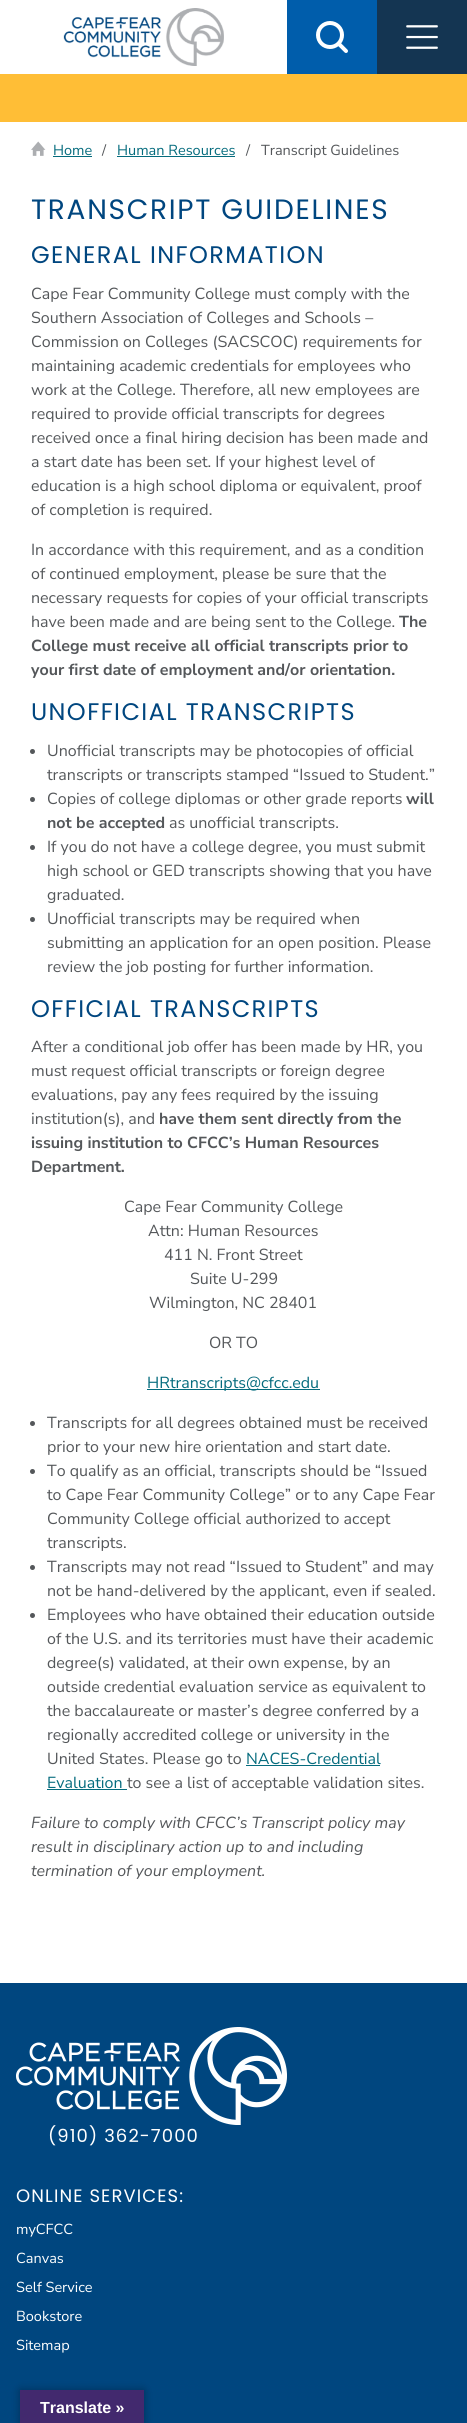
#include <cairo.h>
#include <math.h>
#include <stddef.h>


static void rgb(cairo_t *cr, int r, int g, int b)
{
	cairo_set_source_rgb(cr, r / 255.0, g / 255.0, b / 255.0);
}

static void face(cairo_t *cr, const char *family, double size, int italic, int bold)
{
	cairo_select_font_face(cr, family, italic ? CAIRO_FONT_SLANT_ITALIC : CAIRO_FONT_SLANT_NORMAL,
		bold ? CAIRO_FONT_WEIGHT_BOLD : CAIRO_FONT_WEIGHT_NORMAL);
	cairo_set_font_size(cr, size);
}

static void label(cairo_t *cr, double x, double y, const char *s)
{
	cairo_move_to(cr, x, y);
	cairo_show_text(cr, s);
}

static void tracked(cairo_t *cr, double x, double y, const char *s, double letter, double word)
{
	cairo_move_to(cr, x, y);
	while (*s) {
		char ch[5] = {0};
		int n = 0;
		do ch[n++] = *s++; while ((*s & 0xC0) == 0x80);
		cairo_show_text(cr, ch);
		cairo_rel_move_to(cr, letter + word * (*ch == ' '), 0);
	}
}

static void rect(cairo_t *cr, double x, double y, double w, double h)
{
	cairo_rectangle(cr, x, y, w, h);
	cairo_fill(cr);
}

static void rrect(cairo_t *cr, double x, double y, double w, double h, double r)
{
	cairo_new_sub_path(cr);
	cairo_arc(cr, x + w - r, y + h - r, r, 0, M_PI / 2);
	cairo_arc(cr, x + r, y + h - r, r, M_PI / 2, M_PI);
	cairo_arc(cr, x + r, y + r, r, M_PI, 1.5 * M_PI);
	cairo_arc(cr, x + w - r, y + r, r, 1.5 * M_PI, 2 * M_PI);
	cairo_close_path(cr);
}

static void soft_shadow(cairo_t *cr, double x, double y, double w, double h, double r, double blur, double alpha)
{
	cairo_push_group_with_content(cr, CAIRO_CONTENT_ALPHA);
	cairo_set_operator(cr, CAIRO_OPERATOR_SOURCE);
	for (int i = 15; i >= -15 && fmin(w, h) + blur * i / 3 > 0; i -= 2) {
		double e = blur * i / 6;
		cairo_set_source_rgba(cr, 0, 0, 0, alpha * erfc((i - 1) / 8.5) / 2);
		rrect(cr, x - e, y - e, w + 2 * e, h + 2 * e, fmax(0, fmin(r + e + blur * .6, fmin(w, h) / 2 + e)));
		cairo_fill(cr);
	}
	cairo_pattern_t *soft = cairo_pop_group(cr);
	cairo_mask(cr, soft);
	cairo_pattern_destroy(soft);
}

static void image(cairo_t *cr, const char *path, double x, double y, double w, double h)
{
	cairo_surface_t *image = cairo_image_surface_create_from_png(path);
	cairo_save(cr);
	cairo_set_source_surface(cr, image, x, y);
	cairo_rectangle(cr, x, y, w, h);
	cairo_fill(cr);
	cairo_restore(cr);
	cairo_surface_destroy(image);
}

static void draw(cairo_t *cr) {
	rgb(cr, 255, 255, 255);
	cairo_paint(cr);
	image(cr, "image0.png", 63, 8, 161, 58);
	rgb(cr, 0, 93, 171);
	rect(cr, 287, 0, 90, 74);
	image(cr, "image1.png", 316, 21, 32, 32);
	rgb(cr, 20, 53, 82);
	rect(cr, 377, 0, 90, 74);
	image(cr, "image2.png", 406, 25, 32, 24);
	rgb(cr, 255, 190, 54);
	rect(cr, 0, 74, 467, 48);
	image(cr, "image3.png", 31, 141, 15, 15);
	face(cr, "Nunito Sans", 14.5, 0, 0);
	rgb(cr, 4, 107, 125);
	label(cr, 53, 155, "Home");
	rect(cr, 53, 156, 39, 1);
	rgb(cr, 84, 87, 90);
	label(cr, 102, 155, "/");
	rgb(cr, 4, 107, 125);
	label(cr, 117, 155, "Human Resources");
	rect(cr, 117, 156, 118, 1);
	rgb(cr, 84, 87, 90);
	label(cr, 246, 155, "/");
	label(cr, 261, 155, "Transcript Guidelines");
	face(cr, "Poppins", 28, 0, 0);
	rgb(cr, 0, 70, 127);
	tracked(cr, 31, 219, "TRANSCRIPT GUIDELINES", 1.7, 0);
	face(cr, "Poppins", 24, 0, 0);
	tracked(cr, 31, 263, "GENERAL INFORMATION", 1.4, 0);
	face(cr, "Nunito Sans", 16, 0, 0);
	rgb(cr, 84, 87, 90);
	label(cr, 31, 299, "Cape Fear Community College must comply with the");
	label(cr, 31, 323, "Southern Association of Colleges and Schools –");
	label(cr, 31, 347, "Commission on Colleges (SACSCOC) requirements for");
	label(cr, 31, 371, "maintaining academic credentials for employees who");
	label(cr, 31, 395, "work at the College. Therefore, all new employees are");
	label(cr, 31, 419, "required to provide official transcripts for degrees");
	label(cr, 31, 443, "received once a final hiring decision has been made and");
	label(cr, 31, 467, "a start date has been set. If your highest level of");
	label(cr, 31, 491, "education is a high school diploma or equivalent, proof");
	label(cr, 31, 515, "of completion is required.");
	label(cr, 31, 555, "In accordance with this requirement, and as a condition");
	label(cr, 31, 579, "of continued employment, please be sure that the");
	label(cr, 31, 603, "necessary requests for copies of your official transcripts");
	label(cr, 31, 627, "have been made and are being sent to the College.");
	face(cr, "Nunito Sans", 16, 0, 1);
	label(cr, 399, 627, "The");
	label(cr, 31, 651, "College must receive all official transcripts prior to");
	label(cr, 31, 675, "your first date of employment and/or orientation.");
	face(cr, "Poppins", 24, 0, 0);
	rgb(cr, 0, 70, 127);
	tracked(cr, 31, 720, "UNOFFICIAL TRANSCRIPTS", 1.4, 0);
	rgb(cr, 84, 87, 90);
	cairo_new_path(cr);
	cairo_arc(cr, 32.5, 751.5, 2.5, 0, 2 * M_PI);
	cairo_fill(cr);
	face(cr, "Nunito Sans", 16, 0, 0);
	label(cr, 47, 756, "Unofficial transcripts may be photocopies of official");
	label(cr, 47, 780, "transcripts or transcripts stamped “Issued to Student.”");
	cairo_new_path(cr);
	cairo_arc(cr, 32.5, 799.5, 2.5, 0, 2 * M_PI);
	cairo_fill(cr);
	label(cr, 47, 804, "Copies of college diplomas or other grade reports");
	face(cr, "Nunito Sans", 16, 0, 1);
	label(cr, 406, 804, "will");
	label(cr, 47, 828, "not be accepted");
	face(cr, "Nunito Sans", 16, 0, 0);
	label(cr, 169, 828, "as unofficial transcripts.");
	cairo_new_path(cr);
	cairo_arc(cr, 32.5, 847.5, 2.5, 0, 2 * M_PI);
	cairo_fill(cr);
	label(cr, 47, 852, "If you do not have a college degree, you must submit");
	label(cr, 47, 876, "high school or GED transcripts showing that you have");
	label(cr, 47, 900, "graduated.");
	cairo_new_path(cr);
	cairo_arc(cr, 32.5, 919.5, 2.5, 0, 2 * M_PI);
	cairo_fill(cr);
	label(cr, 47, 924, "Unofficial transcripts may be required when");
	label(cr, 47, 948, "submitting an application for an open position. Please");
	label(cr, 47, 972, "review the job posting for further information.");
	face(cr, "Poppins", 24, 0, 0);
	rgb(cr, 0, 70, 127);
	tracked(cr, 31, 1017, "OFFICIAL TRANSCRIPTS", 1.4, 0);
	face(cr, "Nunito Sans", 16, 0, 0);
	rgb(cr, 84, 87, 90);
	label(cr, 31, 1052, "After a conditional job offer has been made by HR, you");
	label(cr, 31, 1076, "must request official transcripts or foreign degree");
	label(cr, 31, 1100, "evaluations, pay any fees required by the issuing");
	label(cr, 31, 1124, "institution(s), and");
	face(cr, "Nunito Sans", 16, 0, 1);
	label(cr, 159, 1124, "have them sent directly from the");
	label(cr, 31, 1148, "issuing institution to CFCC’s Human Resources");
	label(cr, 31, 1172, "Department.");
	face(cr, "Nunito Sans", 16, 0, 0);
	label(cr, 124, 1212, "Cape Fear Community College");
	label(cr, 148, 1236, "Attn: Human Resources");
	label(cr, 164, 1260, "411 N. Front Street");
	label(cr, 190, 1284, "Suite U-299");
	label(cr, 149, 1308, "Wilmington, NC 28401");
	label(cr, 209, 1348, "OR TO");
	rgb(cr, 4, 107, 125);
	rect(cr, 147, 1389, 173, 1);
	label(cr, 147, 1388, "HRtranscripts@cfcc.edu");
	rgb(cr, 84, 87, 90);
	cairo_new_path(cr);
	cairo_arc(cr, 32.5, 1423.5, 2.5, 0, 2 * M_PI);
	cairo_fill(cr);
	label(cr, 47, 1428, "Transcripts for all degrees obtained must be received");
	label(cr, 47, 1452, "prior to your new hire orientation and start date.");
	cairo_new_path(cr);
	cairo_arc(cr, 32.5, 1471.5, 2.5, 0, 2 * M_PI);
	cairo_fill(cr);
	label(cr, 47, 1476, "To qualify as an official, transcripts should be “Issued");
	label(cr, 47, 1500, "to Cape Fear Community College” or to any Cape Fear");
	label(cr, 47, 1524, "Community College official authorized to accept");
	label(cr, 47, 1548, "transcripts.");
	cairo_new_path(cr);
	cairo_arc(cr, 32.5, 1567.5, 2.5, 0, 2 * M_PI);
	cairo_fill(cr);
	label(cr, 47, 1572, "Transcripts may not read “Issued to Student” and may");
	label(cr, 47, 1596, "not be hand-delivered by the applicant, even if sealed.");
	cairo_new_path(cr);
	cairo_arc(cr, 32.5, 1615.5, 2.5, 0, 2 * M_PI);
	cairo_fill(cr);
	label(cr, 47, 1620, "Employees who have obtained their education outside");
	label(cr, 47, 1644, "of the U.S. and its territories must have their academic");
	label(cr, 47, 1668, "degree(s) validated, at their own expense, by an");
	label(cr, 47, 1692, "outside credential evaluation service as equivalent to");
	label(cr, 47, 1716, "the baccalaureate or master’s degree conferred by a");
	label(cr, 47, 1740, "regionally accredited college or university in the");
	label(cr, 47, 1764, "United States. Please go to");
	rgb(cr, 4, 107, 125);
	label(cr, 246, 1764, "NACES-Credential");
	rect(cr, 246, 1765, 134, 1);
	label(cr, 47, 1788, "Evaluation");
	rect(cr, 47, 1789, 80, 1);
	rgb(cr, 84, 87, 90);
	label(cr, 127, 1788, "to see a list of acceptable validation sites.");
	face(cr, "Nunito Sans", 16, 1, 0);
	label(cr, 31, 1828, "Failure to comply with CFCC’s Transcript policy may");
	label(cr, 31, 1852, "result in disciplinary action up to and including");
	label(cr, 31, 1876, "termination of your employment.");
	rgb(cr, 0, 70, 127);
	rect(cr, 0, 1983, 467, 440);
	image(cr, "image4.png", 16, 2027, 271, 98);
	face(cr, "Poppins", 18, 0, 0);
	rgb(cr, 255, 255, 255);
	tracked(cr, 48, 2142, "(910) 362-7000", 1.1, 0);
	tracked(cr, 16, 2202, "ONLINE SERVICES:", 1.1, 0);
	face(cr, "Nunito Sans", 14.5, 0, 0);
	label(cr, 16, 2234, "myCFCC");
	label(cr, 16, 2263, "Canvas");
	label(cr, 16, 2292, "Self Service");
	label(cr, 16, 2321, "Bookstore");
	label(cr, 16, 2350, "Sitemap");
	rgb(cr, 0, 0, 0);
	soft_shadow(cr, 20, 2390, 124, 33, 0, 4.5, 0.3);
	rgb(cr, 66, 41, 110);
	rect(cr, 20, 2390, 124, 33);
	face(cr, "Liberation Sans", 16, 0, 1);
	rgb(cr, 255, 255, 255);
	label(cr, 40, 2413, "Translate »");
}

int main(void) {
	cairo_surface_t *surface = cairo_image_surface_create(CAIRO_FORMAT_RGB24, 467, 2423);
	cairo_t *cr = cairo_create(surface);
	cairo_font_options_t *options = cairo_font_options_create();
	cairo_font_options_set_hint_metrics(options, CAIRO_HINT_METRICS_OFF);
	cairo_font_options_set_hint_style(options, CAIRO_HINT_STYLE_NONE);
	cairo_set_font_options(cr, options);
	cairo_set_miter_limit(cr, 4);
	draw(cr);
	cairo_surface_write_to_png(surface, "render.png");
	cairo_font_options_destroy(options);
	cairo_destroy(cr);
	cairo_surface_destroy(surface);
	return 0;
}
